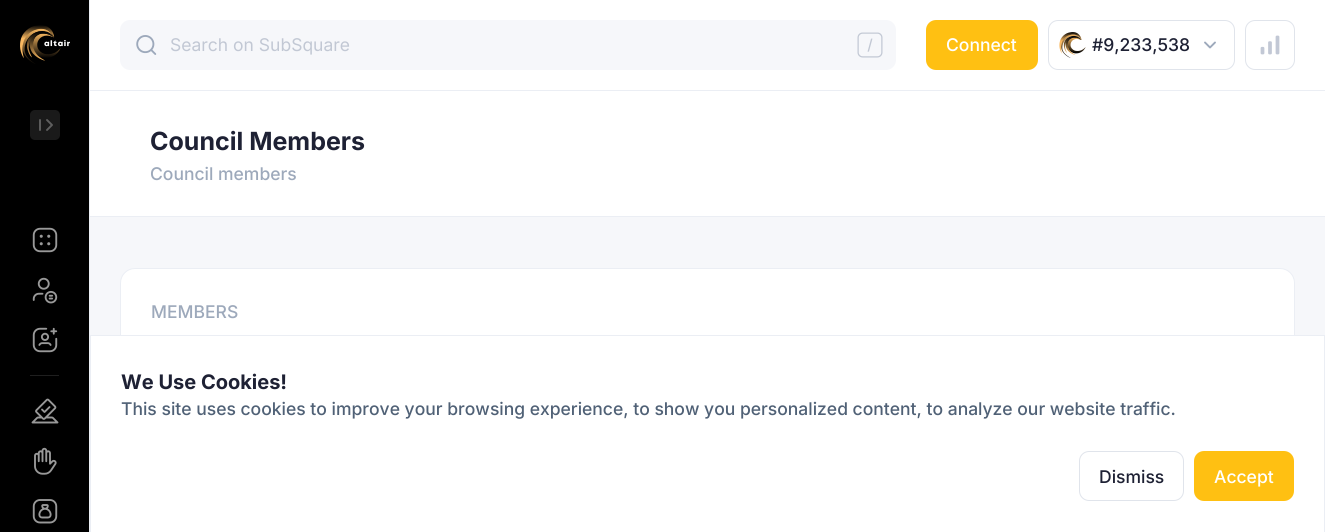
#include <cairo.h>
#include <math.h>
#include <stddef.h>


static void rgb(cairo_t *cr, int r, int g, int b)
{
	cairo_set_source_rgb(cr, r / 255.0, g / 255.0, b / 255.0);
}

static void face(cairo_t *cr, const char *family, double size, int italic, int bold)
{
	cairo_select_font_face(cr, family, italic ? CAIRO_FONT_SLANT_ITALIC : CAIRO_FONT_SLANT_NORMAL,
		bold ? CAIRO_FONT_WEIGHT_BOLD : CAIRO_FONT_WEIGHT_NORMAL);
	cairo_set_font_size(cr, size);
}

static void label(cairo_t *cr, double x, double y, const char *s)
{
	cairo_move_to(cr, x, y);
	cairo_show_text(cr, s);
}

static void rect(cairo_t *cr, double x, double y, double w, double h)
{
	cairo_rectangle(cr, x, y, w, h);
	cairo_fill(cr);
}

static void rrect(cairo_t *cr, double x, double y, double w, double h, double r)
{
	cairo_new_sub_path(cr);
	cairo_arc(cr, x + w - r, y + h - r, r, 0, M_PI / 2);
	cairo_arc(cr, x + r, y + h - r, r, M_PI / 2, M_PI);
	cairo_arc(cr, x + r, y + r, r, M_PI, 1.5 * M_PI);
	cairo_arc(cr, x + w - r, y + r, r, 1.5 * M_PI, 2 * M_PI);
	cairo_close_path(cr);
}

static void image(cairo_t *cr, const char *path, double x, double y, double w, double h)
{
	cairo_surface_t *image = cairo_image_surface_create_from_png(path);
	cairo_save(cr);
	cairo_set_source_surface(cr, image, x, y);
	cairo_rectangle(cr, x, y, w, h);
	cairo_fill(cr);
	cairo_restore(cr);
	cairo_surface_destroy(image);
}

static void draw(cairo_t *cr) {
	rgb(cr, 246, 247, 250);
	cairo_paint(cr);
	rgb(cr, 0, 0, 0);
	rect(cr, 0, 0, 89, 532);
	rgb(cr, 235, 238, 244);
	rect(cr, 89, 0, 1, 532);
	image(cr, "image0.png", 20, 25, 50, 39);
	rgb(cr, 26, 26, 26);
	rrect(cr, 30, 110, 30, 30, 5);
	cairo_fill(cr);
	cairo_new_path(cr);
	cairo_move_to(cr, 47, 130);
	cairo_line_to(cr, 52, 125);
	cairo_line_to(cr, 47, 120);
	cairo_move_to(cr, 40, 130);
	cairo_line_to(cr, 40, 120);
	rgb(cr, 95, 95, 95);
	cairo_set_line_width(cr, 1.9);
	cairo_set_line_cap(cr, CAIRO_LINE_CAP_ROUND);
	cairo_set_line_join(cr, CAIRO_LINE_JOIN_ROUND);
	cairo_stroke(cr);
	image(cr, "image1.png", 32, 227, 26, 26);
	image(cr, "image2.png", 32, 277, 26, 27);
	image(cr, "image3.png", 32, 327, 26, 26);
	rgb(cr, 31, 31, 31);
	rect(cr, 30, 375, 29, 1);
	image(cr, "image4.png", 31, 398, 28, 26);
	image(cr, "image5.png", 34, 447, 23, 28);
	image(cr, "image6.png", 32, 499, 26, 25);
	rgb(cr, 255, 255, 255);
	rect(cr, 90, 0, 1235, 90);
	rgb(cr, 235, 238, 244);
	rect(cr, 90, 90, 1235, 1);
	rgb(cr, 246, 247, 250);
	rrect(cr, 120, 20, 776, 50, 10);
	cairo_fill(cr);
	image(cr, "image7.png", 136, 35, 21, 20);
	face(cr, "Inter", 17.5, 0, 0);
	rgb(cr, 194, 200, 212);
	label(cr, 170, 51, "Search on SubSquare");
	image(cr, "image8.png", 857, 32, 26, 26);
	rgb(cr, 255, 192, 18);
	rrect(cr, 926, 20, 112, 50, 10);
	cairo_fill(cr);
	face(cr, "Inter Medium", 17.5, 0, 0);
	rgb(cr, 255, 255, 255);
	label(cr, 946, 51, "Connect");
	rrect(cr, 1048.5, 20.5, 186, 49, 9.5);
	rgb(cr, 224, 228, 235);
	cairo_set_line_width(cr, 1);
	cairo_set_line_cap(cr, CAIRO_LINE_CAP_BUTT);
	cairo_set_line_join(cr, CAIRO_LINE_JOIN_MITER);
	cairo_stroke(cr);
	image(cr, "image9.png", 1059, 32, 27, 26);
	rgb(cr, 30, 33, 52);
	label(cr, 1092, 51, "#9,233,538");
	cairo_new_path(cr);
	cairo_move_to(cr, 1205, 42.5);
	cairo_line_to(cr, 1210, 47.5);
	cairo_line_to(cr, 1215, 42.5);
	rgb(cr, 157, 169, 187);
	cairo_set_line_width(cr, 1.9);
	cairo_set_line_cap(cr, CAIRO_LINE_CAP_ROUND);
	cairo_set_line_join(cr, CAIRO_LINE_JOIN_ROUND);
	cairo_stroke(cr);
	rrect(cr, 1245.5, 20.5, 49, 49, 9.5);
	rgb(cr, 224, 228, 235);
	cairo_set_line_width(cr, 1);
	cairo_set_line_cap(cr, CAIRO_LINE_CAP_BUTT);
	cairo_set_line_join(cr, CAIRO_LINE_JOIN_MITER);
	cairo_stroke(cr);
	image(cr, "image10.png", 1260, 35, 20, 20);
	rgb(cr, 255, 255, 255);
	rect(cr, 90, 91, 1235, 125);
	rgb(cr, 235, 238, 244);
	rect(cr, 90, 216, 1235, 1);
	face(cr, "Inter", 25, 0, 1);
	rgb(cr, 30, 33, 52);
	label(cr, 150, 150, "Council Members");
	face(cr, "Inter Medium", 17.5, 0, 0);
	rgb(cr, 157, 169, 187);
	label(cr, 150, 180, "Council members");
	rgb(cr, 255, 255, 255);
	rrect(cr, 120.5, 268.5, 1174, 157, 14.5);
	cairo_fill_preserve(cr);
	rgb(cr, 235, 238, 244);
	cairo_stroke(cr);
	rgb(cr, 157, 169, 187);
	label(cr, 151, 318, "MEMBERS");
	rgb(cr, 255, 255, 255);
	cairo_rectangle(cr, 90.5, 335.5, 1234, 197);
	cairo_fill_preserve(cr);
	rgb(cr, 235, 238, 244);
	cairo_stroke(cr);
	face(cr, "Inter", 20, 0, 1);
	rgb(cr, 30, 33, 52);
	label(cr, 121, 389, "We Use Cookies!");
	face(cr, "Inter Medium", 17.5, 0, 0);
	rgb(cr, 80, 97, 118);
	label(cr, 121, 415, "This site uses cookies to improve your browsing experience, to show you personalized content, to analyze our website traffic.");
	rrect(cr, 1079.5, 451.5, 104, 49, 9.5);
	rgb(cr, 224, 228, 235);
	cairo_stroke(cr);
	rgb(cr, 30, 33, 52);
	label(cr, 1099, 483, "Dismiss");
	rgb(cr, 255, 192, 18);
	rrect(cr, 1194, 451, 100, 50, 10);
	cairo_fill(cr);
	rgb(cr, 255, 255, 255);
	label(cr, 1214, 483, "Accept");
}

int main(void) {
	cairo_surface_t *surface = cairo_image_surface_create(CAIRO_FORMAT_RGB24, 1325, 532);
	cairo_t *cr = cairo_create(surface);
	cairo_font_options_t *options = cairo_font_options_create();
	cairo_font_options_set_hint_metrics(options, CAIRO_HINT_METRICS_OFF);
	cairo_font_options_set_hint_style(options, CAIRO_HINT_STYLE_NONE);
	cairo_set_font_options(cr, options);
	cairo_set_miter_limit(cr, 4);
	draw(cr);
	cairo_surface_write_to_png(surface, "render.png");
	cairo_font_options_destroy(options);
	cairo_destroy(cr);
	cairo_surface_destroy(surface);
	return 0;
}
